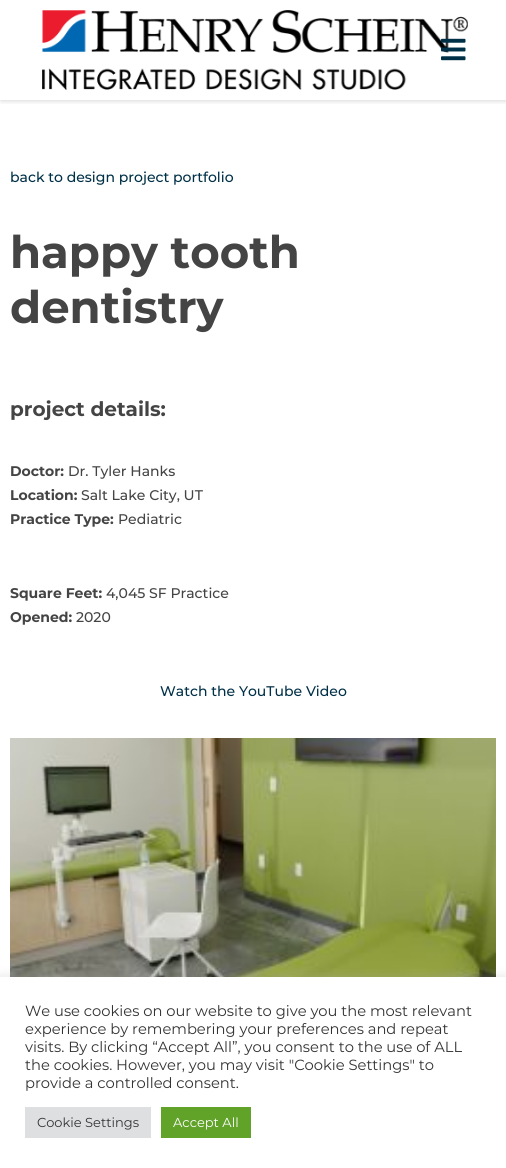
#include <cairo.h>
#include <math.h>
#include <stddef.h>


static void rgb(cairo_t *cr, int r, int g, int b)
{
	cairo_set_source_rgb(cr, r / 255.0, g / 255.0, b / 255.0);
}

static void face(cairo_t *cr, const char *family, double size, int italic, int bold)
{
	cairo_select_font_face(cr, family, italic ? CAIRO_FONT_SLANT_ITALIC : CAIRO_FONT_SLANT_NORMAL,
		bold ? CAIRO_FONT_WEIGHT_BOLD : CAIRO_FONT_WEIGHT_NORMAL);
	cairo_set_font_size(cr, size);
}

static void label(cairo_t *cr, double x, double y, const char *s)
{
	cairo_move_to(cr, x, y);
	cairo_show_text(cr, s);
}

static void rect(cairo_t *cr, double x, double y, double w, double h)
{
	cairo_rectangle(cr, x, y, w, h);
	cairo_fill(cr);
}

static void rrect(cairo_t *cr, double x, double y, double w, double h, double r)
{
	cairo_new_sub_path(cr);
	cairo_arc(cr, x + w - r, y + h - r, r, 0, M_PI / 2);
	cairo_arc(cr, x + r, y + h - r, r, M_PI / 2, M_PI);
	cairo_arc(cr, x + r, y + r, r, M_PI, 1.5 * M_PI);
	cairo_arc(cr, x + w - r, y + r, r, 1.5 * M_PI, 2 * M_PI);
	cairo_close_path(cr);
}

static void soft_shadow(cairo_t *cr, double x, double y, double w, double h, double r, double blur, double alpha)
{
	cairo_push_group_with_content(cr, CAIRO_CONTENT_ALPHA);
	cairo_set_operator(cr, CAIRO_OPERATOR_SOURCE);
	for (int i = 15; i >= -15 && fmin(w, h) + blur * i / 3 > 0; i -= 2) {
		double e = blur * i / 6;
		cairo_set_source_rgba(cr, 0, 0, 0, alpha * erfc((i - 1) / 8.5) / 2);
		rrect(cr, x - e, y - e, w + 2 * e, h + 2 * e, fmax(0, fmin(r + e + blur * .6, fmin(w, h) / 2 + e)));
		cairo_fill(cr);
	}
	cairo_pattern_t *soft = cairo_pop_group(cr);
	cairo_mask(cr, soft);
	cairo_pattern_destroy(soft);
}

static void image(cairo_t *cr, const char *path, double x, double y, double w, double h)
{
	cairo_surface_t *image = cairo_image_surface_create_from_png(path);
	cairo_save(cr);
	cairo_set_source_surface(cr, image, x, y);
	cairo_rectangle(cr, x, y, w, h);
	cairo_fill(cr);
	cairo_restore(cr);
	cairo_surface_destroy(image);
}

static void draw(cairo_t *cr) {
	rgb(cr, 255, 255, 255);
	cairo_paint(cr);
	cairo_save(cr);
	cairo_rectangle(cr, 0, 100, 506, 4);
	cairo_clip(cr);
	rgb(cr, 0, 0, 0);
	soft_shadow(cr, 1, 1, 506, 100, 0, 2.5, 0.16);
	cairo_restore(cr);
	image(cr, "image0.png", 42, 10, 426, 80);
	image(cr, "image1.png", 441, 38, 25, 23);
	face(cr, "Montserrat Medium", 14, 0, 0);
	rgb(cr, 0, 48, 71);
	label(cr, 10, 182, "back to design project portfolio");
	face(cr, "Montserrat", 45, 0, 1);
	rgb(cr, 68, 68, 68);
	label(cr, 10, 268, "happy tooth");
	label(cr, 10, 323, "dentistry");
	face(cr, "Montserrat", 20, 0, 1);
	label(cr, 10, 416, "project details:");
	face(cr, "Montserrat", 14, 0, 1);
	label(cr, 10, 476, "Doctor:");
	face(cr, "Montserrat Medium", 14, 0, 0);
	label(cr, 68, 476, "Dr. Tyler Hanks");
	face(cr, "Montserrat", 14, 0, 1);
	label(cr, 10, 500, "Location:");
	face(cr, "Montserrat Medium", 14, 0, 0);
	label(cr, 81, 500, "Salt Lake City, UT");
	face(cr, "Montserrat", 14, 0, 1);
	label(cr, 10, 524, "Practice Type:");
	face(cr, "Montserrat Medium", 14, 0, 0);
	label(cr, 118, 524, "Pediatric");
	face(cr, "Montserrat", 14, 0, 1);
	label(cr, 10, 598, "Square Feet:");
	face(cr, "Montserrat Medium", 14, 0, 0);
	label(cr, 106, 598, "4,045 SF Practice");
	face(cr, "Montserrat", 14, 0, 1);
	label(cr, 10, 622, "Opened:");
	face(cr, "Montserrat Medium", 14, 0, 0);
	label(cr, 76, 622, "2020");
	rgb(cr, 0, 48, 71);
	label(cr, 160, 696, "Watch the YouTube Video");
	image(cr, "image2.png", 10, 738, 486, 239);
	rgb(cr, 172, 171, 171);
	soft_shadow(cr, 0, 976, 506, 191, 0, 5, 0.3);
	rgb(cr, 255, 255, 255);
	rect(cr, 0, 977, 506, 191);
	face(cr, "Montserrat", 14.7, 0, 0);
	rgb(cr, 51, 51, 51);
	label(cr, 25, 1016, "We use cookies on our website to give you the most relevant");
	label(cr, 25, 1034, "experience by remembering your preferences and repeat");
	label(cr, 25, 1052, "visits. By clicking “Accept All”, you consent to the use of ALL");
	label(cr, 25, 1070, "the cookies. However, you may visit \"Cookie Settings\" to");
	label(cr, 25, 1088, "provide a controlled consent.");
	rgb(cr, 222, 223, 224);
	rect(cr, 25, 1107, 126, 31);
	face(cr, "Montserrat", 13, 0, 0);
	rgb(cr, 51, 51, 51);
	label(cr, 37, 1127, "Cookie Settings");
	rgb(cr, 97, 162, 41);
	rect(cr, 161, 1107, 90, 31);
	rgb(cr, 255, 255, 255);
	label(cr, 173, 1127, "Accept All");
}

int main(void) {
	cairo_surface_t *surface = cairo_image_surface_create(CAIRO_FORMAT_RGB24, 506, 1168);
	cairo_t *cr = cairo_create(surface);
	cairo_font_options_t *options = cairo_font_options_create();
	cairo_font_options_set_hint_metrics(options, CAIRO_HINT_METRICS_OFF);
	cairo_font_options_set_hint_style(options, CAIRO_HINT_STYLE_NONE);
	cairo_set_font_options(cr, options);
	cairo_set_miter_limit(cr, 4);
	draw(cr);
	cairo_surface_write_to_png(surface, "render.png");
	cairo_font_options_destroy(options);
	cairo_destroy(cr);
	cairo_surface_destroy(surface);
	return 0;
}
